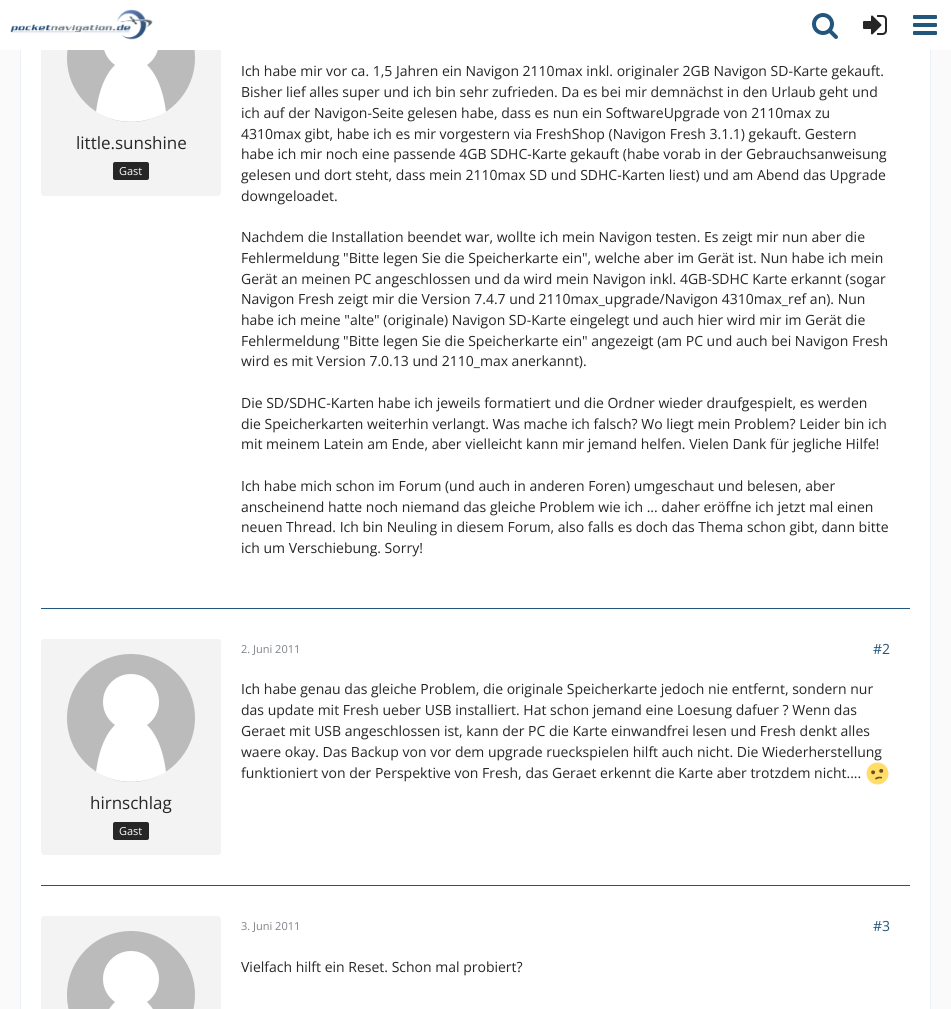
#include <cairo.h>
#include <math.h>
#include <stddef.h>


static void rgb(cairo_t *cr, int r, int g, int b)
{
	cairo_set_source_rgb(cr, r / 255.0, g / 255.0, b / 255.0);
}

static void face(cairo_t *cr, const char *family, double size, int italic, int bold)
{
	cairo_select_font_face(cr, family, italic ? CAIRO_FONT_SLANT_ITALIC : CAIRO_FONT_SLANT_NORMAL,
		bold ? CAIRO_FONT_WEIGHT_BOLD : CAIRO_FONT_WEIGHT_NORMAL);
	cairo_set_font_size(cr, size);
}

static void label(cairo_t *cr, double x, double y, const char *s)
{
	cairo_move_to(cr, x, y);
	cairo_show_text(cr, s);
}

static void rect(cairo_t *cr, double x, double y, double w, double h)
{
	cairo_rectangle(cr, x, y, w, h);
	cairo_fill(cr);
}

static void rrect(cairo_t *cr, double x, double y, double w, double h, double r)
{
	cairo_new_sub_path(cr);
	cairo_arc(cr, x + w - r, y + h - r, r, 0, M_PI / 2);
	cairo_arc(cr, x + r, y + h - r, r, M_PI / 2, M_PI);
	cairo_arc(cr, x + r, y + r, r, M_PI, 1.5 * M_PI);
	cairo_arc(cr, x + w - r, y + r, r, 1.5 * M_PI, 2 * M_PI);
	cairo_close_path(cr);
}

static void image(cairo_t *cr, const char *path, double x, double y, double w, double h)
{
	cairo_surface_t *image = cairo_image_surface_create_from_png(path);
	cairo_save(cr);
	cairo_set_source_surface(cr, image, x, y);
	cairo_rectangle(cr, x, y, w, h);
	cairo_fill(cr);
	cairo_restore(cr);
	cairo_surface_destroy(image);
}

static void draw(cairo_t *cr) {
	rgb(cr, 250, 250, 250);
	cairo_paint(cr);
	rgb(cr, 255, 255, 255);
	rect(cr, 21, 50, 909, 959);
	cairo_rectangle(cr, 20.5, -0.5, 910, 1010);
	rgb(cr, 236, 241, 247);
	cairo_set_line_width(cr, 1);
	cairo_stroke(cr);
	rgb(cr, 243, 243, 243);
	rrect(cr, 41, -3, 180, 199, 3);
	cairo_fill(cr);
	rgb(cr, 187, 187, 187);
	cairo_arc(cr, 131, 58, 64, 0, 2 * M_PI);
	cairo_fill(cr);
	rgb(cr, 255, 255, 255);
	cairo_new_path(cr);
	cairo_move_to(cr, 166, 112);
	cairo_curve_to(cr, 145, 125, 117, 125, 96, 112);
	cairo_curve_to(cr, 105, 40, 157, 40, 166, 112);
	cairo_close_path(cr);
	cairo_fill(cr);
	cairo_arc(cr, 131, 42, 28, 0, 2 * M_PI);
	cairo_fill(cr);
	rect(cr, 0, 0, 951, 50);
	image(cr, "image0.png", 10, 9, 143, 31);
	image(cr, "image1.png", 812, 13, 26, 26);
	image(cr, "image2.png", 863, 15, 24, 20);
	image(cr, "image3.png", 913, 15, 24, 20);
	rgb(cr, 35, 86, 124);
	rect(cr, 41, 608, 869, 1);
	face(cr, "Open Sans", 17, 0, 0);
	rgb(cr, 38, 38, 38);
	label(cr, 76, 149, "little.sunshine");
	rrect(cr, 113, 162, 36, 18, 2);
	cairo_fill(cr);
	face(cr, "Open Sans", 11, 0, 0);
	rgb(cr, 250, 250, 250);
	label(cr, 119, 175, "Gast");
	face(cr, "Open Sans", 14, 0, 0);
	rgb(cr, 38, 38, 38);
	label(cr, 241, 76, "Ich habe mir vor ca. 1,5 Jahren ein Navigon 2110max inkl. originaler 2GB Navigon SD-Karte gekauft.");
	label(cr, 241, 97, "Bisher lief alles super und ich bin sehr zufrieden. Da es bei mir demnächst in den Urlaub geht und");
	label(cr, 241, 118, "ich auf der Navigon-Seite gelesen habe, dass es nun ein SoftwareUpgrade von 2110max zu");
	label(cr, 241, 139, "4310max gibt, habe ich es mir vorgestern via FreshShop (Navigon Fresh 3.1.1) gekauft. Gestern");
	label(cr, 241, 159, "habe ich mir noch eine passende 4GB SDHC-Karte gekauft (habe vorab in der Gebrauchsanweisung");
	label(cr, 241, 180, "gelesen und dort steht, dass mein 2110max SD und SDHC-Karten liest) und am Abend das Upgrade");
	label(cr, 241, 201, "downgeloadet.");
	label(cr, 241, 242, "Nachdem die Installation beendet war, wollte ich mein Navigon testen. Es zeigt mir nun aber die");
	label(cr, 241, 263, "Fehlermeldung \"Bitte legen Sie die Speicherkarte ein\", welche aber im Gerät ist. Nun habe ich mein");
	label(cr, 241, 284, "Gerät an meinen PC angeschlossen und da wird mein Navigon inkl. 4GB-SDHC Karte erkannt (sogar");
	label(cr, 241, 304, "Navigon Fresh zeigt mir die Version 7.4.7 und 2110max_upgrade/Navigon 4310max_ref an). Nun");
	label(cr, 241, 325, "habe ich meine \"alte\" (originale) Navigon SD-Karte eingelegt und auch hier wird mir im Gerät die");
	label(cr, 241, 346, "Fehlermeldung \"Bitte legen Sie die Speicherkarte ein\" angezeigt (am PC und auch bei Navigon Fresh");
	label(cr, 241, 366, "wird es mit Version 7.0.13 und 2110_max anerkannt).");
	label(cr, 241, 408, "Die SD/SDHC-Karten habe ich jeweils formatiert und die Ordner wieder draufgespielt, es werden");
	label(cr, 241, 429, "die Speicherkarten weiterhin verlangt. Was mache ich falsch? Wo liegt mein Problem? Leider bin ich");
	label(cr, 241, 449, "mit meinem Latein am Ende, aber vielleicht kann mir jemand helfen. Vielen Dank für jegliche Hilfe!");
	label(cr, 241, 491, "Ich habe mich schon im Forum (und auch in anderen Foren) umgeschaut und belesen, aber");
	label(cr, 241, 512, "anscheinend hatte noch niemand das gleiche Problem wie ich ... daher eröffne ich jetzt mal einen");
	label(cr, 241, 532, "neuen Thread. Ich bin Neuling in diesem Forum, also falls es doch das Thema schon gibt, dann bitte");
	label(cr, 241, 553, "ich um Verschiebung. Sorry!");
	rgb(cr, 35, 86, 124);
	rect(cr, 41, 885, 869, 1);
	face(cr, "Open Sans", 11, 0, 0);
	rgb(cr, 125, 130, 135);
	label(cr, 241, 653, "2. Juni 2011");
	face(cr, "Open Sans", 14, 0, 0);
	rgb(cr, 35, 86, 124);
	label(cr, 873, 654, "#2");
	rgb(cr, 38, 38, 38);
	label(cr, 241, 694, "Ich habe genau das gleiche Problem, die originale Speicherkarte jedoch nie entfernt, sondern nur");
	label(cr, 241, 715, "das update mit Fresh ueber USB installiert. Hat schon jemand eine Loesung dafuer ? Wenn das");
	label(cr, 241, 736, "Geraet mit USB angeschlossen ist, kann der PC die Karte einwandfrei lesen und Fresh denkt alles");
	label(cr, 241, 757, "waere okay. Das Backup von vor dem upgrade rueckspielen hilft auch nicht. Die Wiederherstellung");
	label(cr, 241, 778, "funktioniert von der Perspektive von Fresh, das Geraet erkennt die Karte aber trotzdem nicht....");
	image(cr, "image4.png", 866, 762, 23, 23);
	rgb(cr, 243, 243, 243);
	rrect(cr, 41, 639, 180, 216, 3);
	cairo_fill(cr);
	rgb(cr, 187, 187, 187);
	cairo_arc(cr, 131, 718, 64, 0, 2 * M_PI);
	cairo_fill(cr);
	rgb(cr, 255, 255, 255);
	cairo_new_path(cr);
	cairo_move_to(cr, 166, 772);
	cairo_curve_to(cr, 145, 785, 117, 785, 96, 772);
	cairo_curve_to(cr, 105, 700, 157, 700, 166, 772);
	cairo_close_path(cr);
	cairo_fill(cr);
	cairo_arc(cr, 131, 702, 28, 0, 2 * M_PI);
	cairo_fill(cr);
	face(cr, "Open Sans", 17, 0, 0);
	rgb(cr, 38, 38, 38);
	label(cr, 90, 809, "hirnschlag");
	rrect(cr, 113, 822, 36, 18, 2);
	cairo_fill(cr);
	face(cr, "Open Sans", 11, 0, 0);
	rgb(cr, 250, 250, 250);
	label(cr, 119, 835, "Gast");
	rgb(cr, 243, 243, 243);
	rrect(cr, 41, 916, 180, 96, 3);
	cairo_fill(cr);
	rgb(cr, 187, 187, 187);
	cairo_arc(cr, 131, 995, 64, 0, 2 * M_PI);
	cairo_fill(cr);
	rgb(cr, 255, 255, 255);
	cairo_new_path(cr);
	cairo_move_to(cr, 166, 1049);
	cairo_curve_to(cr, 145, 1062, 117, 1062, 96, 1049);
	cairo_curve_to(cr, 105, 977, 157, 977, 166, 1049);
	cairo_close_path(cr);
	cairo_fill(cr);
	cairo_arc(cr, 131, 979, 28, 0, 2 * M_PI);
	cairo_fill(cr);
	rgb(cr, 125, 130, 135);
	label(cr, 241, 930, "3. Juni 2011");
	face(cr, "Open Sans", 14, 0, 0);
	rgb(cr, 35, 86, 124);
	label(cr, 873, 931, "#3");
	rgb(cr, 38, 38, 38);
	label(cr, 241, 972, "Vielfach hilft ein Reset. Schon mal probiert?");
}

int main(void) {
	cairo_surface_t *surface = cairo_image_surface_create(CAIRO_FORMAT_RGB24, 951, 1009);
	cairo_t *cr = cairo_create(surface);
	cairo_font_options_t *options = cairo_font_options_create();
	cairo_font_options_set_hint_metrics(options, CAIRO_HINT_METRICS_OFF);
	cairo_font_options_set_hint_style(options, CAIRO_HINT_STYLE_NONE);
	cairo_set_font_options(cr, options);
	cairo_set_miter_limit(cr, 4);
	draw(cr);
	cairo_surface_write_to_png(surface, "render.png");
	cairo_font_options_destroy(options);
	cairo_destroy(cr);
	cairo_surface_destroy(surface);
	return 0;
}
